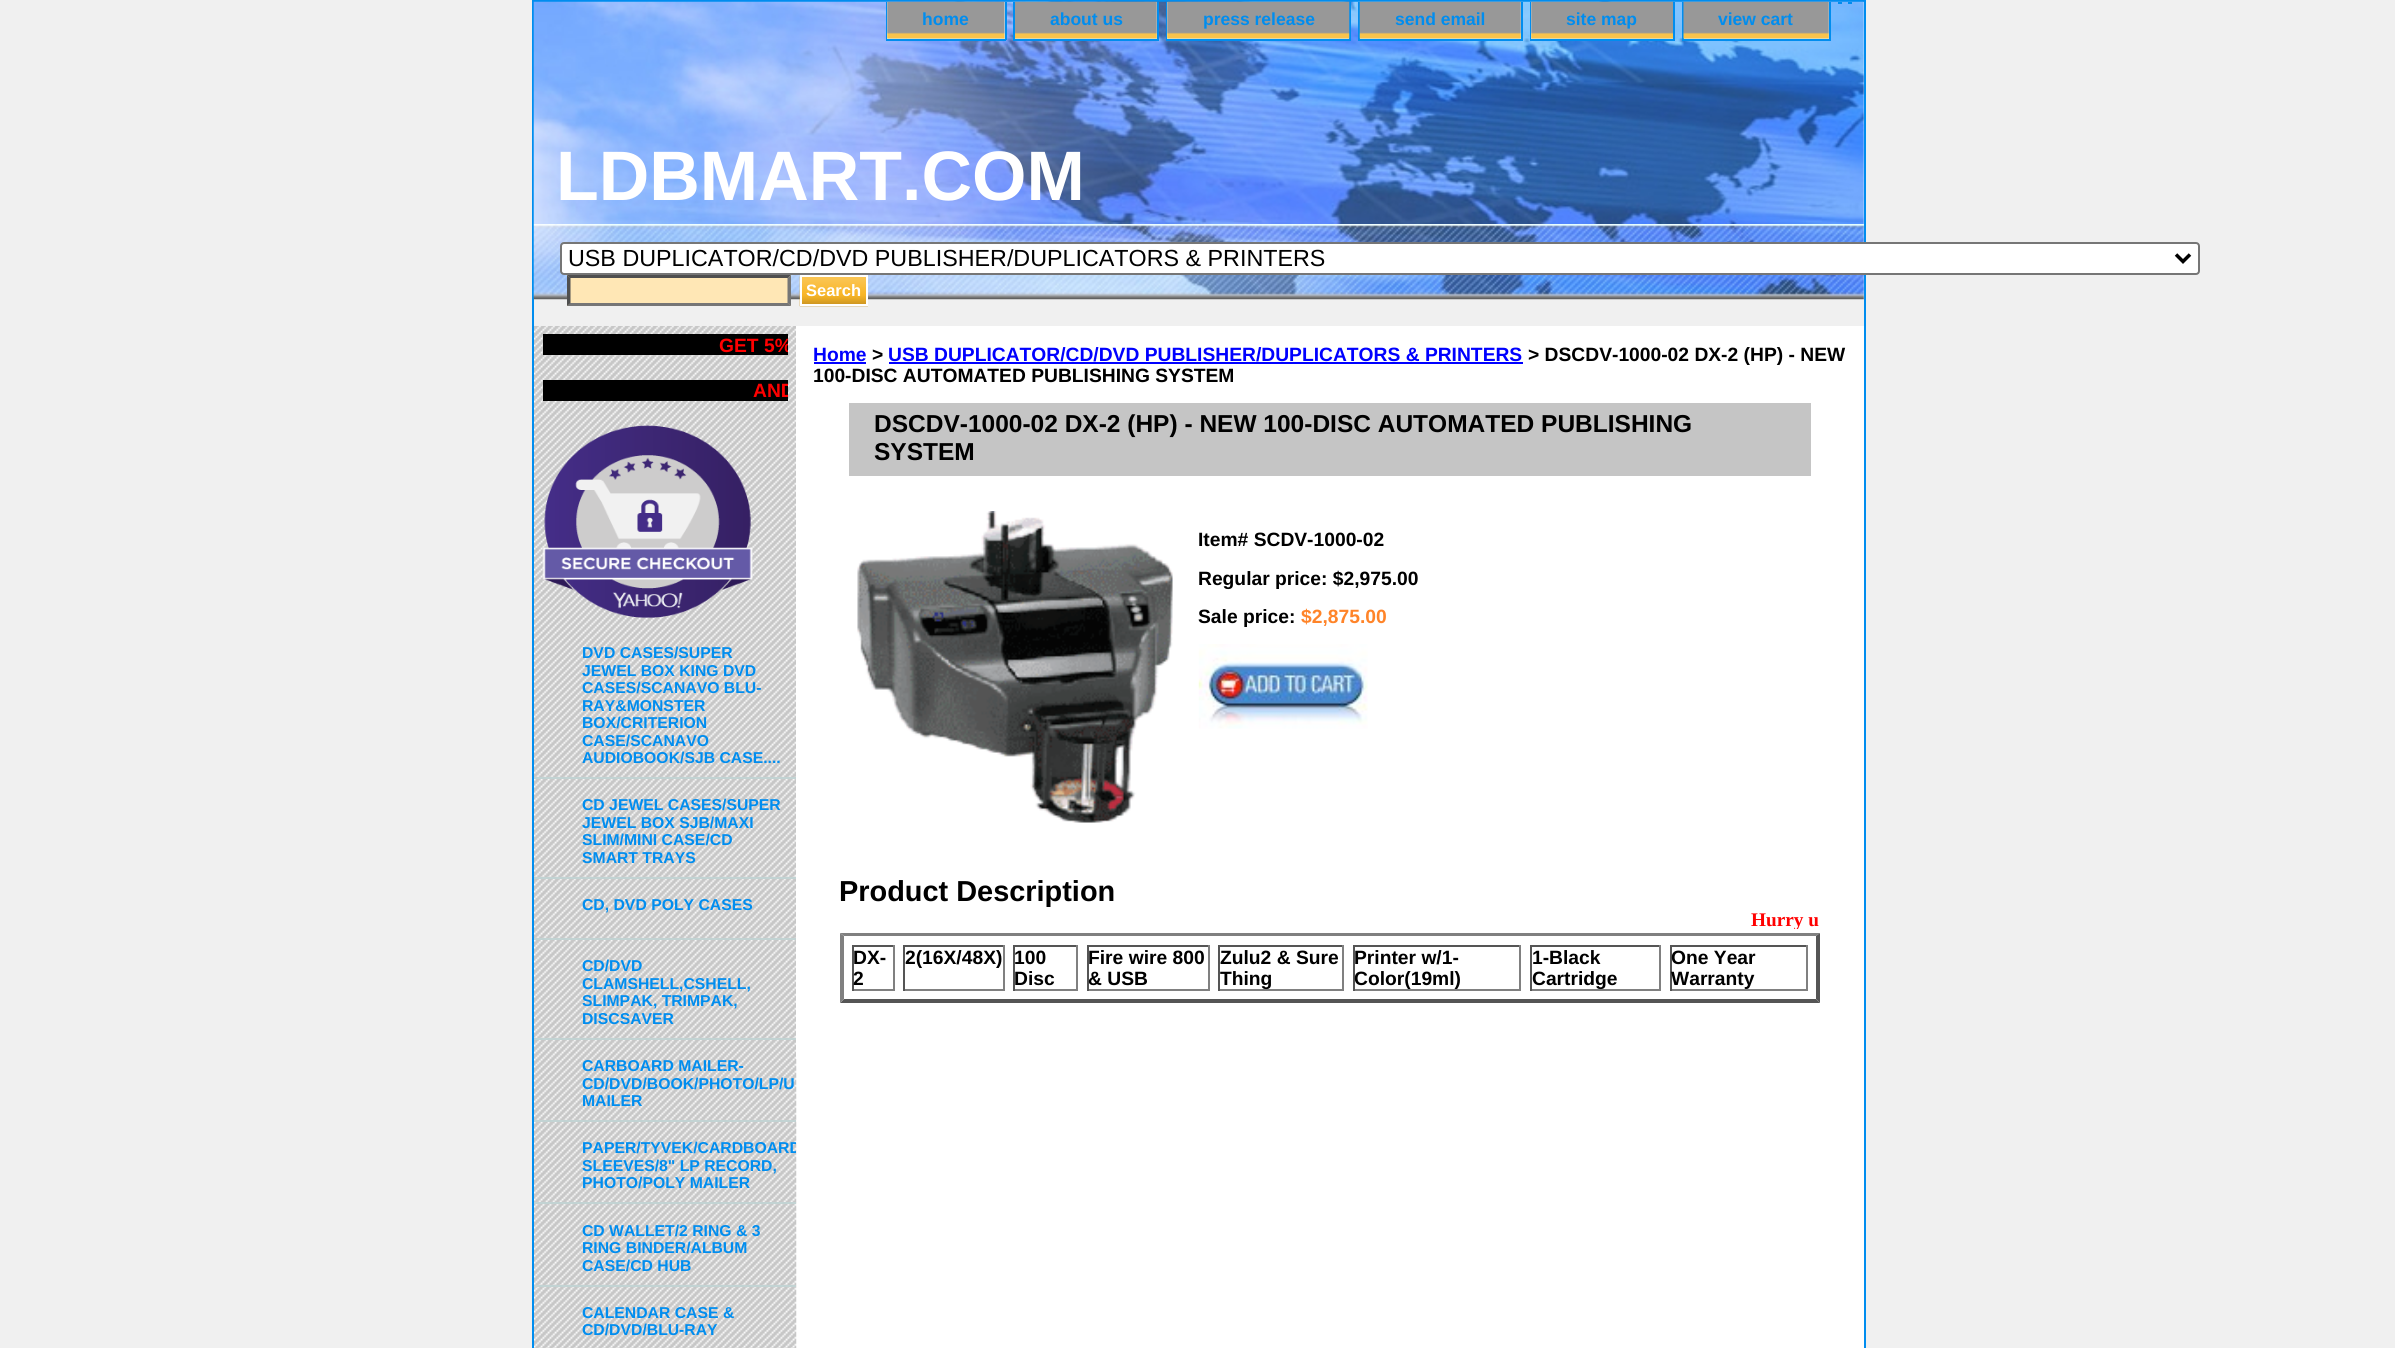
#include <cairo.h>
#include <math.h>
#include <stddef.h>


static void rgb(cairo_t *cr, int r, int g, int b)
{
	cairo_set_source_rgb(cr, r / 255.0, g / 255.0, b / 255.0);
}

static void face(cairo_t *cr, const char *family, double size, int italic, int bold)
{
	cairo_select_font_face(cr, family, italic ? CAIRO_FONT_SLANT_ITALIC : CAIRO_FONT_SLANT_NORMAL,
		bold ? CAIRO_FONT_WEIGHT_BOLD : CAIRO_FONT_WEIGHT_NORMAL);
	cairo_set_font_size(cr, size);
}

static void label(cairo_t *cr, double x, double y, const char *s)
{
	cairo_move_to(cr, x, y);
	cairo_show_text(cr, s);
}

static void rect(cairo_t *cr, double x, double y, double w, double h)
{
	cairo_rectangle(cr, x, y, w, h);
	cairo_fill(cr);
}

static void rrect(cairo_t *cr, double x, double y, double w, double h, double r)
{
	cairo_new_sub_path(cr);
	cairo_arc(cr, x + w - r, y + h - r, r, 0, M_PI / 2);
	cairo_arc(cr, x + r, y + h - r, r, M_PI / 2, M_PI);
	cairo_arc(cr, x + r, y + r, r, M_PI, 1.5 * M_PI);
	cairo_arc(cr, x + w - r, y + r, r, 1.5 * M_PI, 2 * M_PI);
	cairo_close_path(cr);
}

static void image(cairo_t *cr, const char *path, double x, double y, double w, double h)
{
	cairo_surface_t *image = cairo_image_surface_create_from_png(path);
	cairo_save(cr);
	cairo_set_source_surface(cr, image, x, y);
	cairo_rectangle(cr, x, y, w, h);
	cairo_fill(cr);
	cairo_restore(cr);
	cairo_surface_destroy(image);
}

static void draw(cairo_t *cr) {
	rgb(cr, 240, 240, 240);
	cairo_paint(cr);
	rgb(cr, 255, 255, 255);
	rect(cr, 796, 2, 1068, 1346);
	image(cr, "image0.png", 534, 326, 263, 1022);
	cairo_rectangle(cr, 533, 1, 1332, 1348);
	rgb(cr, 0, 141, 239);
	cairo_stroke(cr);
	image(cr, "image1.png", 533, 1, 1331, 223);
	rect(cr, 1838, 2, 4, 2);
	rect(cr, 1848, 2, 4, 2);
	rect(cr, 1005, 2, 2, 38);
	rect(cr, 886, 39, 120, 2);
	rect(cr, 886, 2, 2, 38);
	rgb(cr, 206, 238, 252);
	rect(cr, 887, 2, 118, 37);
	image(cr, "image2.png", 887, 1, 118, 38);
	face(cr, "Liberation Sans", 17.5, 0, 1);
	rgb(cr, 0, 141, 239);
	label(cr, 922, 25, "home");
	rect(cr, 1157, 2, 2, 38);
	rect(cr, 1013, 39, 146, 2);
	rect(cr, 1013, 2, 2, 38);
	rgb(cr, 206, 238, 252);
	rect(cr, 1015, 2, 142, 37);
	image(cr, "image3.png", 1015, 1, 142, 38);
	rgb(cr, 0, 141, 239);
	label(cr, 1050, 25, "about us");
	rect(cr, 1349, 2, 2, 38);
	rect(cr, 1166, 39, 185, 2);
	rect(cr, 1166, 2, 2, 38);
	rgb(cr, 206, 238, 252);
	rect(cr, 1167, 2, 182, 37);
	image(cr, "image4.png", 1167, 1, 183, 38);
	rgb(cr, 0, 141, 239);
	label(cr, 1203, 25, "press release");
	rect(cr, 1521, 2, 2, 38);
	rect(cr, 1358, 39, 165, 2);
	rect(cr, 1358, 2, 2, 38);
	rgb(cr, 206, 238, 252);
	rect(cr, 1360, 2, 161, 37);
	image(cr, "image5.png", 1359, 1, 162, 38);
	rgb(cr, 0, 141, 239);
	label(cr, 1395, 25, "send email");
	rect(cr, 1673, 2, 2, 38);
	rect(cr, 1530, 39, 145, 2);
	rect(cr, 1530, 2, 2, 38);
	rgb(cr, 206, 238, 252);
	rect(cr, 1531, 2, 142, 37);
	image(cr, "image6.png", 1531, 1, 142, 38);
	rgb(cr, 0, 141, 239);
	label(cr, 1566, 25, "site map");
	rect(cr, 1829, 2, 2, 38);
	rect(cr, 1682, 39, 149, 2);
	rect(cr, 1682, 2, 2, 38);
	rgb(cr, 206, 238, 252);
	rect(cr, 1684, 2, 145, 37);
	image(cr, "image7.png", 1683, 1, 146, 38);
	rgb(cr, 0, 141, 239);
	label(cr, 1718, 25, "view cart");
	face(cr, "Liberation Sans", 70, 0, 1);
	rgb(cr, 255, 255, 255);
	label(cr, 556, 200, "LDBMART.COM");
	rgb(cr, 240, 240, 240);
	rect(cr, 796, 224, 1068, 102);
	image(cr, "image8.png", 533, 224, 1331, 76);
	rgb(cr, 255, 255, 255);
	rrect(cr, 561, 243, 1638, 31, 3);
	cairo_fill_preserve(cr);
	rgb(cr, 118, 118, 118);
	cairo_stroke(cr);
	cairo_new_path(cr);
	cairo_move_to(cr, 2176, 254.5);
	cairo_line_to(cr, 2183, 261.5);
	cairo_line_to(cr, 2190, 254.5);
	rgb(cr, 0, 0, 0);
	cairo_set_line_width(cr, 3.5);
	cairo_stroke(cr);
	face(cr, "Liberation Sans", 23.3, 0, 0);
	label(cr, 568, 266, "USB DUPLICATOR/CD/DVD PUBLISHER/DUPLICATORS & PRINTERS");
	rgb(cr, 255, 231, 181);
	rect(cr, 567, 275, 224, 31);
	rgb(cr, 79, 79, 79);
	cairo_new_path(cr);
	cairo_move_to(cr, 567, 275);
	cairo_line_to(cr, 791, 275);
	cairo_line_to(cr, 788, 278);
	cairo_line_to(cr, 570, 278);
	cairo_close_path(cr);
	cairo_fill(cr);
	rgb(cr, 118, 118, 118);
	cairo_new_path(cr);
	cairo_move_to(cr, 791, 275);
	cairo_line_to(cr, 791, 306);
	cairo_line_to(cr, 787.5, 303);
	cairo_line_to(cr, 787.5, 278);
	cairo_close_path(cr);
	cairo_fill(cr);
	cairo_new_path(cr);
	cairo_move_to(cr, 791, 306);
	cairo_line_to(cr, 567, 306);
	cairo_line_to(cr, 570, 303);
	cairo_line_to(cr, 788, 303);
	cairo_close_path(cr);
	cairo_fill(cr);
	rgb(cr, 79, 79, 79);
	cairo_new_path(cr);
	cairo_move_to(cr, 567, 306);
	cairo_line_to(cr, 567, 275);
	cairo_line_to(cr, 570.5, 278);
	cairo_line_to(cr, 570.5, 303);
	cairo_close_path(cr);
	cairo_fill(cr);
	image(cr, "image9.png", 799, 276, 69, 31);
	cairo_rectangle(cr, 801, 276, 66, 29);
	rgb(cr, 255, 255, 255);
	cairo_set_line_width(cr, 2);
	cairo_stroke(cr);
	face(cr, "Liberation Sans", 16.5, 0, 1);
	label(cr, 806, 296, "Search");
	rgb(cr, 0, 0, 0);
	rect(cr, 543, 334, 245, 21);
	cairo_save(cr);
	cairo_rectangle(cr, 543, 334, 245, 21);
	cairo_clip(cr);
	face(cr, "Liberation Sans", 19.25, 0, 1);
	rgb(cr, 255, 0, 0);
	label(cr, 719, 352, "GET 5%");
	cairo_restore(cr);
	rect(cr, 543, 380, 245, 21);
	cairo_save(cr);
	cairo_rectangle(cr, 543, 380, 245, 21);
	cairo_clip(cr);
	face(cr, "Liberation Sans", 19.25, 0, 1);
	rgb(cr, 255, 0, 0);
	label(cr, 753, 397, "AND");
	cairo_restore(cr);
	image(cr, "image10.png", 542, 425, 211, 193);
	rgb(cr, 194, 211, 211);
	rect(cr, 534, 777, 262, 2);
	face(cr, "Liberation Sans", 15.75, 0, 1);
	rgb(cr, 0, 141, 239);
	label(cr, 582, 658, "DVD CASES/SUPER");
	label(cr, 582, 676, "JEWEL BOX KING DVD");
	label(cr, 582, 693, "CASES/SCANAVO BLU-");
	label(cr, 582, 711, "RAY&MONSTER");
	label(cr, 582, 728, "BOX/CRITERION");
	label(cr, 582, 746, "CASE/SCANAVO");
	label(cr, 582, 763, "AUDIOBOOK/SJB CASE....");
	rgb(cr, 194, 211, 211);
	rect(cr, 534, 877, 262, 2);
	rgb(cr, 0, 141, 239);
	label(cr, 582, 810, "CD JEWEL CASES/SUPER");
	label(cr, 582, 828, "JEWEL BOX SJB/MAXI");
	label(cr, 582, 845, "SLIM/MINI CASE/CD");
	label(cr, 582, 863, "SMART TRAYS");
	rgb(cr, 194, 211, 211);
	rect(cr, 534, 938, 262, 2);
	rgb(cr, 0, 141, 239);
	label(cr, 582, 910, "CD, DVD POLY CASES");
	rgb(cr, 194, 211, 211);
	rect(cr, 534, 1038, 262, 2);
	rgb(cr, 0, 141, 239);
	label(cr, 582, 971, "CD/DVD");
	label(cr, 582, 989, "CLAMSHELL,CSHELL,");
	label(cr, 582, 1006, "SLIMPAK, TRIMPAK,");
	label(cr, 582, 1024, "DISCSAVER");
	rgb(cr, 194, 211, 211);
	rect(cr, 534, 1120, 262, 2);
	rgb(cr, 0, 141, 239);
	label(cr, 582, 1071, "CARBOARD MAILER-");
	label(cr, 582, 1089, "CD/DVD/BOOK/PHOTO/LP/U");
	label(cr, 582, 1106, "MAILER");
	rgb(cr, 194, 211, 211);
	rect(cr, 534, 1202, 262, 2);
	cairo_save(cr);
	cairo_rectangle(cr, 534, 326, 262, 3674);
	cairo_clip(cr);
	rgb(cr, 0, 141, 239);
	label(cr, 582, 1153, "PAPER/TYVEK/CARDBOARD");
	cairo_restore(cr);
	rgb(cr, 0, 141, 239);
	label(cr, 582, 1171, "SLEEVES/8\" LP RECORD,");
	label(cr, 582, 1188, "PHOTO/POLY MAILER");
	rgb(cr, 194, 211, 211);
	rect(cr, 534, 1285, 262, 2);
	rgb(cr, 0, 141, 239);
	label(cr, 582, 1236, "CD WALLET/2 RING & 3");
	label(cr, 582, 1253, "RING BINDER/ALBUM");
	label(cr, 582, 1271, "CASE/CD HUB");
	label(cr, 582, 1318, "CALENDAR CASE &");
	label(cr, 582, 1335, "CD/DVD/BLU-RAY");
	rgb(cr, 255, 255, 255);
	rect(cr, 796, 326, 1, 733);
	face(cr, "Liberation Sans", 19.25, 0, 1);
	rgb(cr, 0, 0, 255);
	label(cr, 813, 361, "Home");
	rect(cr, 814, 362, 52, 2);
	rgb(cr, 0, 0, 0);
	label(cr, 872, 361, ">");
	rgb(cr, 0, 0, 255);
	label(cr, 888, 361, "USB DUPLICATOR/CD/DVD PUBLISHER/DUPLICATORS & PRINTERS");
	rect(cr, 889, 362, 634, 2);
	rgb(cr, 0, 0, 0);
	label(cr, 1528, 361, "> DSCDV-1000-02 DX-2 (HP) - NEW");
	label(cr, 813, 382, "100-DISC AUTOMATED PUBLISHING SYSTEM");
	rgb(cr, 197, 197, 197);
	rect(cr, 849, 403, 962, 73);
	face(cr, "Liberation Sans", 24.5, 0, 1);
	rgb(cr, 0, 0, 0);
	label(cr, 874, 432, "DSCDV-1000-02 DX-2 (HP) - NEW 100-DISC AUTOMATED PUBLISHING");
	label(cr, 874, 460, "SYSTEM");
	image(cr, "image11.png", 857, 511, 316, 312);
	face(cr, "Liberation Sans", 19.25, 0, 1);
	label(cr, 1198, 546, "Item# SCDV-1000-02");
	label(cr, 1198, 585, "Regular price: $2,975.00");
	label(cr, 1198, 623, "Sale price:");
	rgb(cr, 255, 132, 41);
	label(cr, 1301, 623, "$2,875.00");
	image(cr, "image12.png", 1198, 644, 170, 85);
	face(cr, "Liberation Sans", 28.9, 0, 1);
	rgb(cr, 0, 0, 0);
	label(cr, 839, 901, "Product Description");
	cairo_save(cr);
	cairo_rectangle(cr, 840, 908, 980, 21);
	cairo_clip(cr);
	face(cr, "Liberation Serif", 19.25, 0, 1);
	rgb(cr, 255, 0, 0);
	label(cr, 1751, 926, "Hurry u");
	cairo_restore(cr);
	rgb(cr, 128, 128, 128);
	cairo_new_path(cr);
	cairo_move_to(cr, 840, 933);
	cairo_line_to(cr, 1820, 933);
	cairo_line_to(cr, 1816, 936);
	cairo_line_to(cr, 844, 936);
	cairo_close_path(cr);
	cairo_fill(cr);
	rgb(cr, 85, 85, 85);
	cairo_new_path(cr);
	cairo_move_to(cr, 1820, 933);
	cairo_line_to(cr, 1820, 1003);
	cairo_line_to(cr, 1816, 999);
	cairo_line_to(cr, 1816, 936);
	cairo_close_path(cr);
	cairo_fill(cr);
	cairo_new_path(cr);
	cairo_move_to(cr, 1820, 1003);
	cairo_line_to(cr, 840, 1003);
	cairo_line_to(cr, 844, 999);
	cairo_line_to(cr, 1816, 999);
	cairo_close_path(cr);
	cairo_fill(cr);
	rgb(cr, 128, 128, 128);
	cairo_new_path(cr);
	cairo_move_to(cr, 840, 1003);
	cairo_line_to(cr, 840, 933);
	cairo_line_to(cr, 844, 936);
	cairo_line_to(cr, 844, 999);
	cairo_close_path(cr);
	cairo_fill(cr);
	rgb(cr, 85, 85, 85);
	rect(cr, 852, 945, 42, 2);
	rgb(cr, 128, 128, 128);
	rect(cr, 893, 945, 2, 46);
	rect(cr, 852, 989, 42, 2);
	rgb(cr, 85, 85, 85);
	rect(cr, 852, 945, 2, 46);
	face(cr, "Liberation Sans", 19.25, 0, 1);
	rgb(cr, 0, 0, 0);
	label(cr, 853, 964, "DX-");
	label(cr, 853, 985, "2");
	rgb(cr, 85, 85, 85);
	rect(cr, 903, 945, 102, 2);
	rgb(cr, 128, 128, 128);
	rect(cr, 1003, 945, 2, 46);
	rect(cr, 903, 989, 102, 2);
	rgb(cr, 85, 85, 85);
	rect(cr, 903, 945, 2, 46);
	rgb(cr, 0, 0, 0);
	label(cr, 905, 964, "2(16X/48X)");
	rgb(cr, 85, 85, 85);
	rect(cr, 1013, 945, 65, 2);
	rgb(cr, 128, 128, 128);
	rect(cr, 1076, 945, 2, 46);
	rect(cr, 1013, 989, 65, 2);
	rgb(cr, 85, 85, 85);
	rect(cr, 1013, 945, 2, 46);
	rgb(cr, 0, 0, 0);
	label(cr, 1014, 964, "100");
	label(cr, 1014, 985, "Disc");
	rgb(cr, 85, 85, 85);
	rect(cr, 1087, 945, 122, 2);
	rgb(cr, 128, 128, 128);
	rect(cr, 1208, 945, 2, 46);
	rect(cr, 1087, 989, 122, 2);
	rgb(cr, 85, 85, 85);
	rect(cr, 1087, 945, 2, 46);
	rgb(cr, 0, 0, 0);
	label(cr, 1088, 964, "Fire wire 800");
	label(cr, 1088, 985, "& USB");
	rgb(cr, 85, 85, 85);
	rect(cr, 1218, 945, 126, 2);
	rgb(cr, 128, 128, 128);
	rect(cr, 1342, 945, 2, 46);
	rect(cr, 1218, 989, 126, 2);
	rgb(cr, 85, 85, 85);
	rect(cr, 1218, 945, 2, 46);
	rgb(cr, 0, 0, 0);
	label(cr, 1220, 964, "Zulu2 & Sure");
	label(cr, 1220, 985, "Thing");
	rgb(cr, 85, 85, 85);
	rect(cr, 1353, 945, 168, 2);
	rgb(cr, 128, 128, 128);
	rect(cr, 1519, 945, 2, 46);
	rect(cr, 1353, 989, 168, 2);
	rgb(cr, 85, 85, 85);
	rect(cr, 1353, 945, 2, 46);
	rgb(cr, 0, 0, 0);
	label(cr, 1354, 964, "Printer w/1-");
	label(cr, 1354, 985, "Color(19ml)");
	rgb(cr, 85, 85, 85);
	rect(cr, 1530, 945, 131, 2);
	rgb(cr, 128, 128, 128);
	rect(cr, 1659, 945, 2, 46);
	rect(cr, 1530, 989, 131, 2);
	rgb(cr, 85, 85, 85);
	rect(cr, 1530, 945, 2, 46);
	rgb(cr, 0, 0, 0);
	label(cr, 1532, 964, "1-Black");
	label(cr, 1532, 985, "Cartridge");
	rgb(cr, 85, 85, 85);
	rect(cr, 1670, 945, 138, 2);
	rgb(cr, 128, 128, 128);
	rect(cr, 1806, 945, 2, 46);
	rect(cr, 1670, 989, 138, 2);
	rgb(cr, 85, 85, 85);
	rect(cr, 1670, 945, 2, 46);
	rgb(cr, 0, 0, 0);
	label(cr, 1671, 964, "One Year");
	label(cr, 1671, 985, "Warranty");
}

int main(void) {
	cairo_surface_t *surface = cairo_image_surface_create(CAIRO_FORMAT_RGB24, 2395, 1348);
	cairo_t *cr = cairo_create(surface);
	cairo_font_options_t *options = cairo_font_options_create();
	cairo_font_options_set_hint_metrics(options, CAIRO_HINT_METRICS_OFF);
	cairo_font_options_set_hint_style(options, CAIRO_HINT_STYLE_NONE);
	cairo_set_font_options(cr, options);
	cairo_set_miter_limit(cr, 4);
	draw(cr);
	cairo_surface_write_to_png(surface, "render.png");
	cairo_font_options_destroy(options);
	cairo_destroy(cr);
	cairo_surface_destroy(surface);
	return 0;
}
